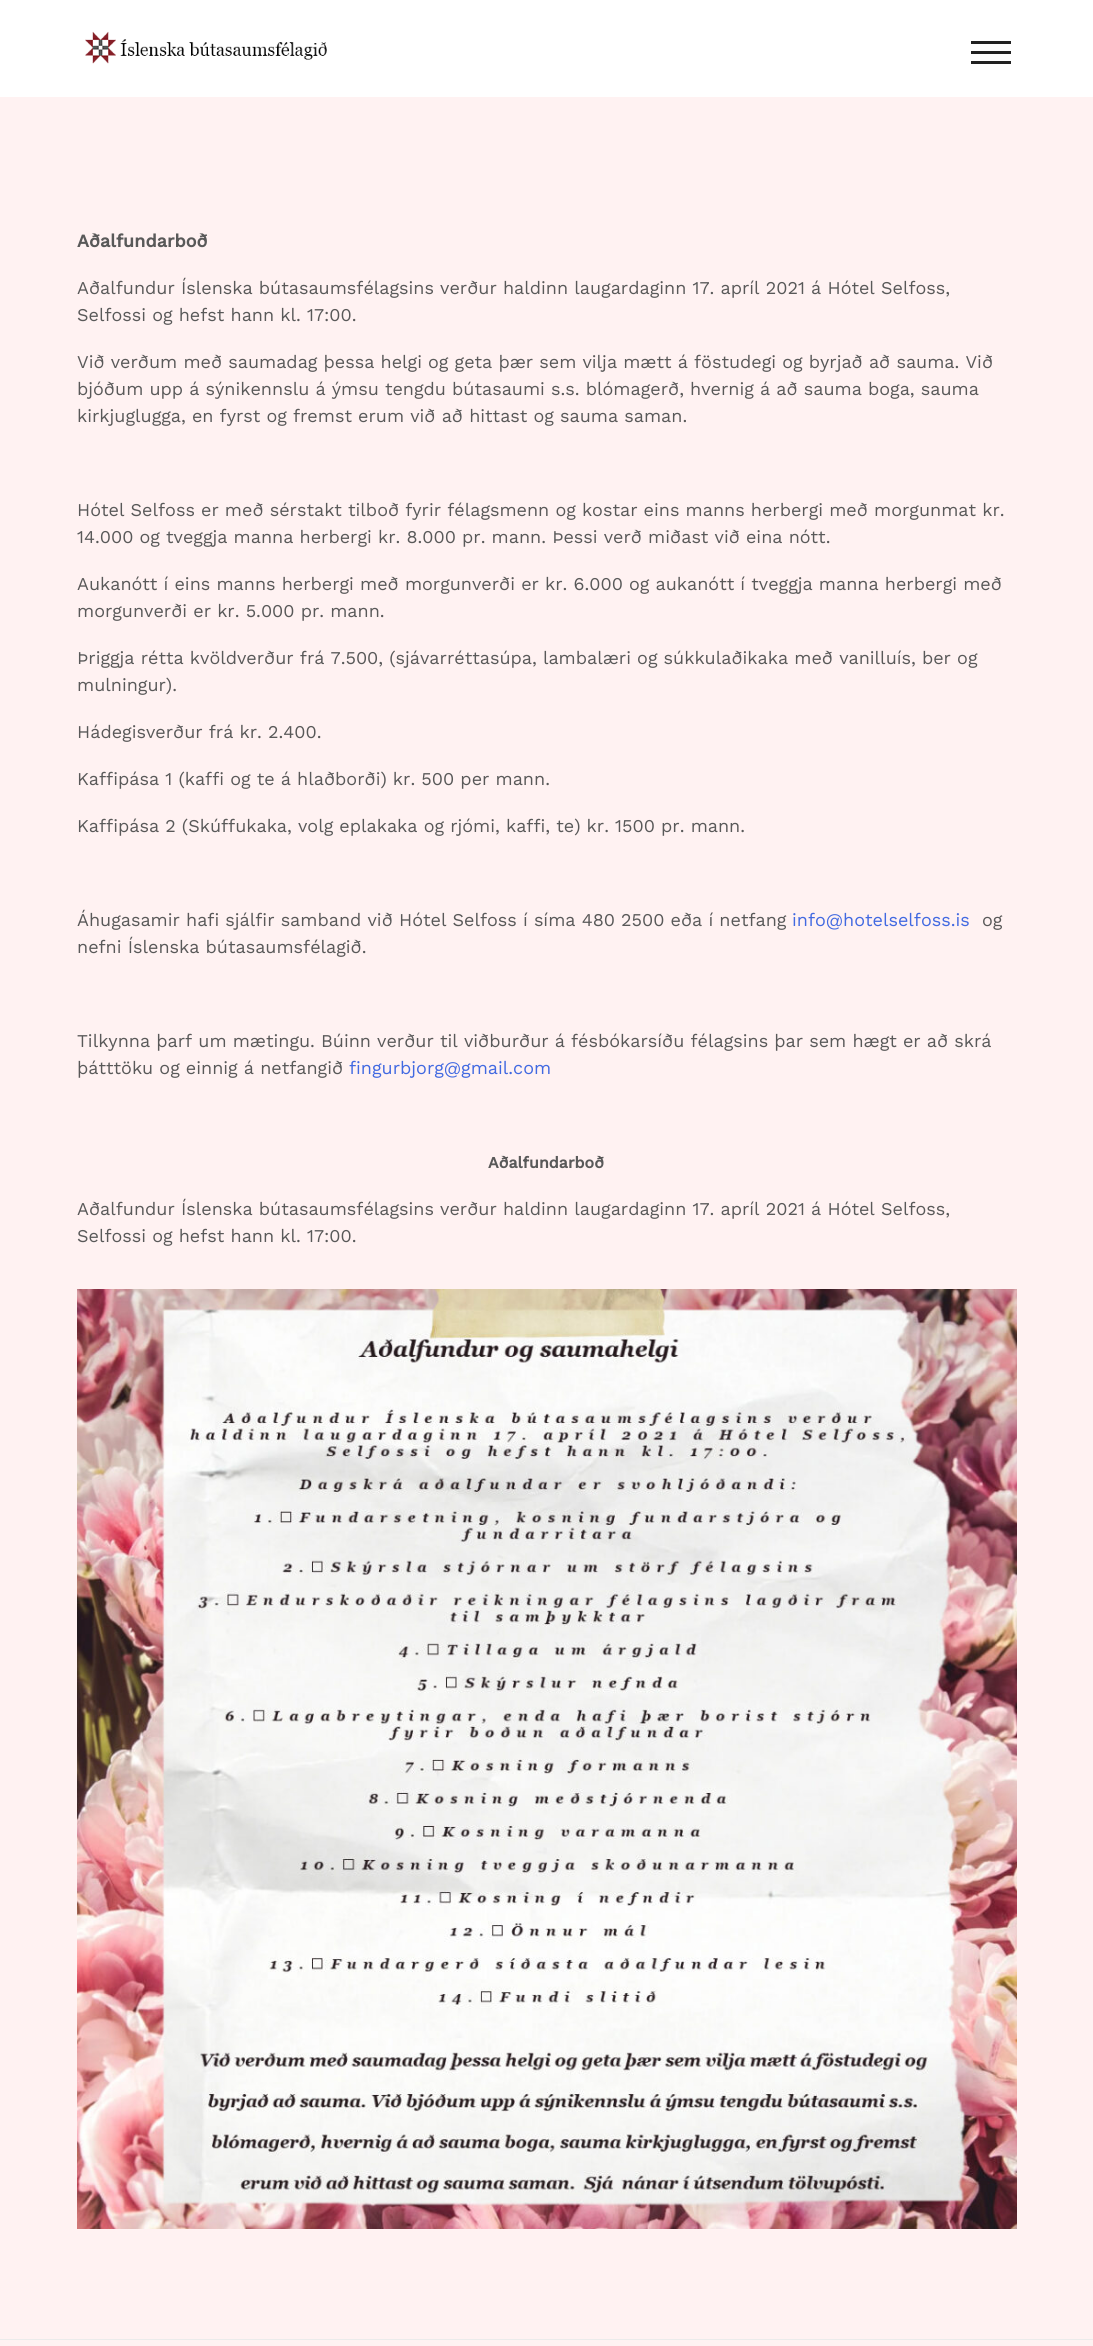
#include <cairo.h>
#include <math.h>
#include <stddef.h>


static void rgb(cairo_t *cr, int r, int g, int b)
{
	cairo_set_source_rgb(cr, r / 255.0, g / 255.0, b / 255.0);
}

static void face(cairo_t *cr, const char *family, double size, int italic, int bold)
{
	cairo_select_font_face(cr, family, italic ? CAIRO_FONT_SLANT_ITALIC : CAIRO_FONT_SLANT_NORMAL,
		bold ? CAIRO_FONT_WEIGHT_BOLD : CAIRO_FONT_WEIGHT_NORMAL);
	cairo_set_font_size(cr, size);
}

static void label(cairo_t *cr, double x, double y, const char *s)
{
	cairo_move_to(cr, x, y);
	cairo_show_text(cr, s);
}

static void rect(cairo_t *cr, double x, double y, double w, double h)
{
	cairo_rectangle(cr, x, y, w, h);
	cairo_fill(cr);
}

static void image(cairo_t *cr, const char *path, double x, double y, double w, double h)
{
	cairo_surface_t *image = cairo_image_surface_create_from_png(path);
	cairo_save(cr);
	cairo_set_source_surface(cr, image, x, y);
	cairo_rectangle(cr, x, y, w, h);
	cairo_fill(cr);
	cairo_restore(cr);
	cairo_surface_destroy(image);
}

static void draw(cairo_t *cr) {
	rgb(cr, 255, 242, 242);
	cairo_paint(cr);
	rgb(cr, 255, 255, 255);
	rect(cr, 0, 0, 1093, 97);
	image(cr, "image0.png", 85, 31, 242, 33);
	rgb(cr, 33, 33, 33);
	rect(cr, 971, 51, 40, 3);
	rect(cr, 971, 41, 40, 3);
	rect(cr, 971, 61, 40, 3);
	face(cr, "Work Sans", 18, 0, 1);
	rgb(cr, 89, 89, 89);
	label(cr, 77, 247, "Aðalfundarboð");
	face(cr, "Work Sans", 18, 0, 0);
	label(cr, 77, 294, "Aðalfundur Íslenska bútasaumsfélagsins verður haldinn laugardaginn 17. apríl 2021 á Hótel Selfoss,");
	label(cr, 77, 321, "Selfossi og hefst hann kl. 17:00.");
	label(cr, 77, 368, "Við verðum með saumadag þessa helgi og geta þær sem vilja mætt á föstudegi og byrjað að sauma. Við");
	label(cr, 77, 395, "bjóðum upp á sýnikennslu á ýmsu tengdu bútasaumi s.s. blómagerð, hvernig á að sauma boga, sauma");
	label(cr, 77, 422, "kirkjuglugga, en fyrst og fremst erum við að hittast og sauma saman.");
	label(cr, 77, 516, "Hótel Selfoss er með sérstakt tilboð fyrir félagsmenn og kostar eins manns herbergi með morgunmat kr.");
	label(cr, 77, 543, "14.000 og tveggja manna herbergi kr. 8.000 pr. mann. Þessi verð miðast við eina nótt.");
	label(cr, 77, 590, "Aukanótt í eins manns herbergi með morgunverði er kr. 6.000 og aukanótt í tveggja manna herbergi með");
	label(cr, 77, 617, "morgunverði er kr. 5.000 pr. mann.");
	label(cr, 77, 664, "Þriggja rétta kvöldverður frá 7.500, (sjávarréttasúpa, lambalæri og súkkulaðikaka með vanilluís, ber og");
	label(cr, 77, 691, "mulningur).");
	label(cr, 77, 738, "Hádegisverður frá kr. 2.400.");
	label(cr, 77, 785, "Kaffipása 1 (kaffi og te á hlaðborði) kr. 500 per mann.");
	label(cr, 77, 832, "Kaffipása 2 (Skúffukaka, volg eplakaka og rjómi, kaffi, te) kr. 1500 pr. mann.");
	label(cr, 77, 926, "Áhugasamir hafi sjálfir samband við Hótel Selfoss í síma 480 2500 eða í netfang");
	rgb(cr, 65, 105, 225);
	label(cr, 792, 926, "info@hotelselfoss.is");
	rgb(cr, 89, 89, 89);
	label(cr, 982, 926, "og");
	label(cr, 77, 953, "nefni Íslenska bútasaumsfélagið.");
	label(cr, 77, 1047, "Tilkynna þarf um mætingu. Búinn verður til viðburður á fésbókarsíðu félagsins þar sem hægt er að skrá");
	label(cr, 77, 1074, "þátttöku og einnig á netfangið");
	rgb(cr, 65, 105, 225);
	label(cr, 349, 1074, "fingurbjorg@gmail.com");
	face(cr, "Work Sans", 16, 0, 1);
	rgb(cr, 89, 89, 89);
	label(cr, 488, 1168, "Aðalfundarboð");
	face(cr, "Work Sans", 18, 0, 0);
	label(cr, 77, 1215, "Aðalfundur Íslenska bútasaumsfélagsins verður haldinn laugardaginn 17. apríl 2021 á Hótel Selfoss,");
	label(cr, 77, 1242, "Selfossi og hefst hann kl. 17:00.");
	image(cr, "image1.png", 77, 1289, 940, 940);
	rgb(cr, 235, 235, 235);
	rect(cr, 0, 2339, 1093, 1);
}

int main(void) {
	cairo_surface_t *surface = cairo_image_surface_create(CAIRO_FORMAT_RGB24, 1093, 2346);
	cairo_t *cr = cairo_create(surface);
	cairo_font_options_t *options = cairo_font_options_create();
	cairo_font_options_set_hint_metrics(options, CAIRO_HINT_METRICS_OFF);
	cairo_font_options_set_hint_style(options, CAIRO_HINT_STYLE_NONE);
	cairo_set_font_options(cr, options);
	cairo_set_miter_limit(cr, 4);
	draw(cr);
	cairo_surface_write_to_png(surface, "render.png");
	cairo_font_options_destroy(options);
	cairo_destroy(cr);
	cairo_surface_destroy(surface);
	return 0;
}
